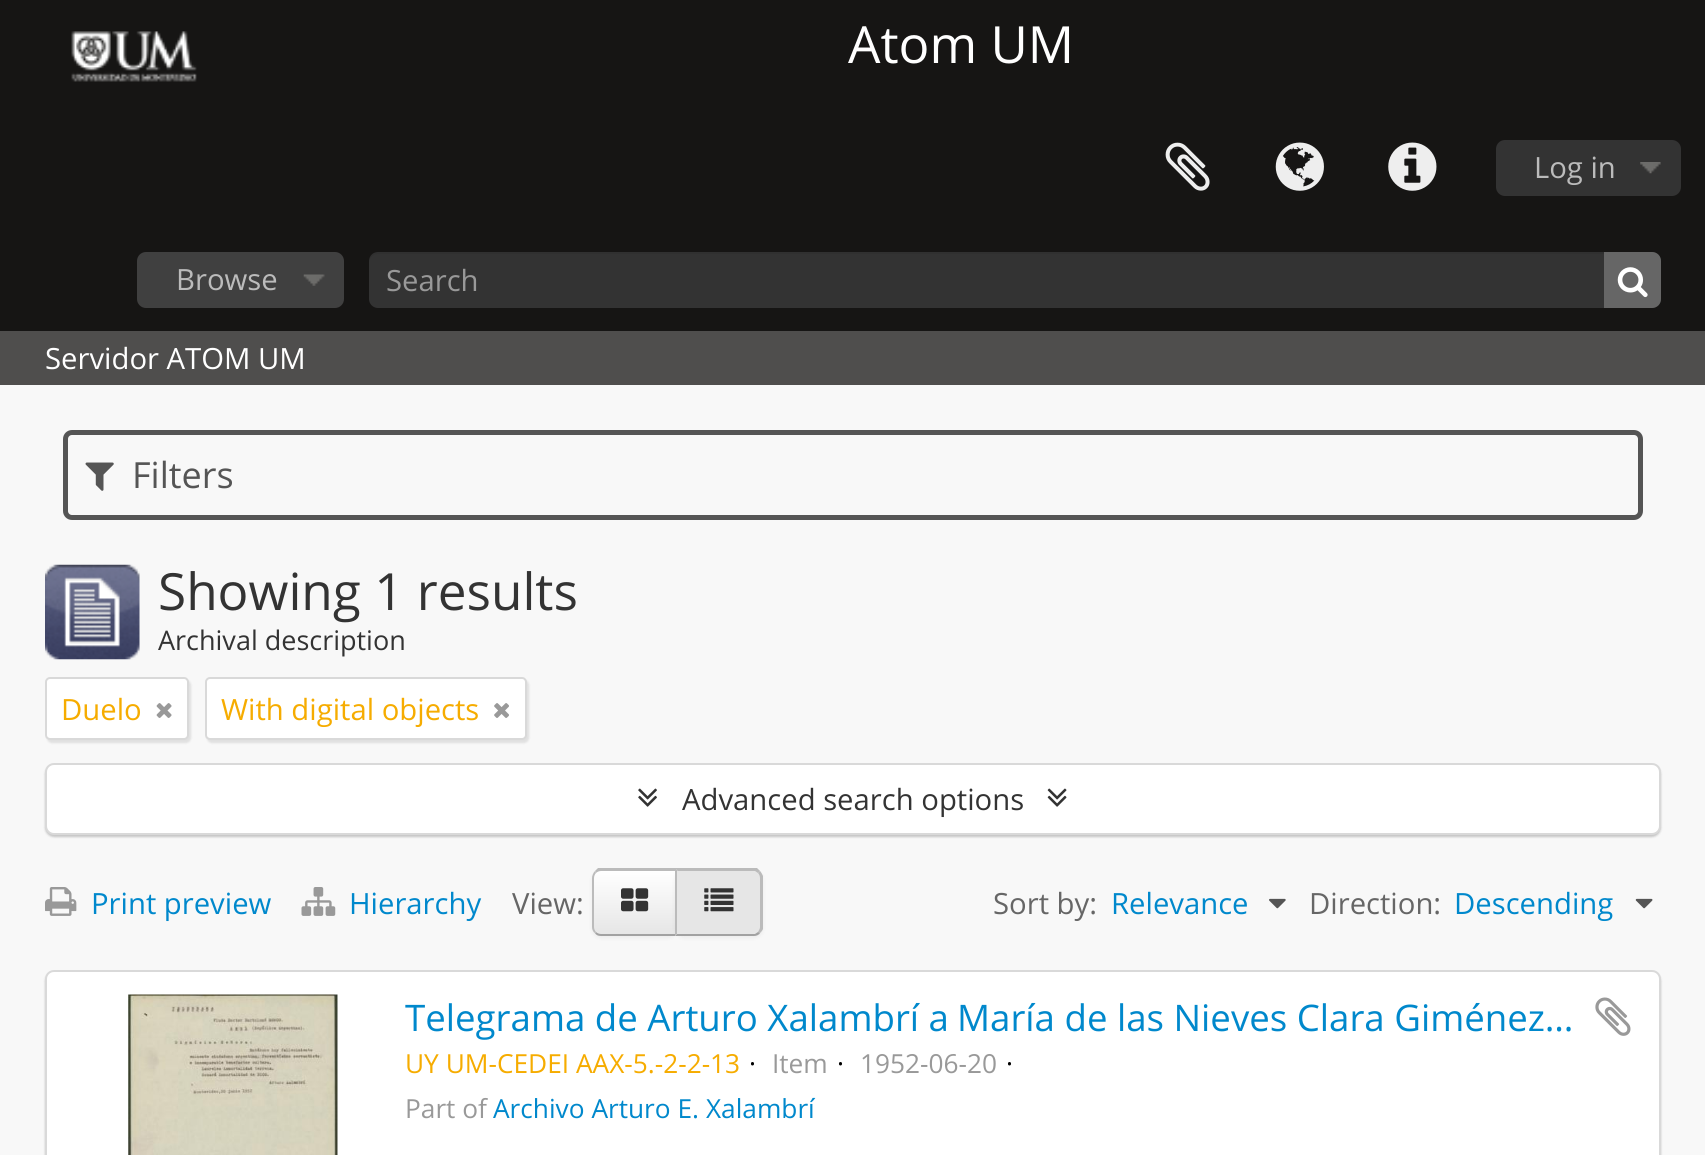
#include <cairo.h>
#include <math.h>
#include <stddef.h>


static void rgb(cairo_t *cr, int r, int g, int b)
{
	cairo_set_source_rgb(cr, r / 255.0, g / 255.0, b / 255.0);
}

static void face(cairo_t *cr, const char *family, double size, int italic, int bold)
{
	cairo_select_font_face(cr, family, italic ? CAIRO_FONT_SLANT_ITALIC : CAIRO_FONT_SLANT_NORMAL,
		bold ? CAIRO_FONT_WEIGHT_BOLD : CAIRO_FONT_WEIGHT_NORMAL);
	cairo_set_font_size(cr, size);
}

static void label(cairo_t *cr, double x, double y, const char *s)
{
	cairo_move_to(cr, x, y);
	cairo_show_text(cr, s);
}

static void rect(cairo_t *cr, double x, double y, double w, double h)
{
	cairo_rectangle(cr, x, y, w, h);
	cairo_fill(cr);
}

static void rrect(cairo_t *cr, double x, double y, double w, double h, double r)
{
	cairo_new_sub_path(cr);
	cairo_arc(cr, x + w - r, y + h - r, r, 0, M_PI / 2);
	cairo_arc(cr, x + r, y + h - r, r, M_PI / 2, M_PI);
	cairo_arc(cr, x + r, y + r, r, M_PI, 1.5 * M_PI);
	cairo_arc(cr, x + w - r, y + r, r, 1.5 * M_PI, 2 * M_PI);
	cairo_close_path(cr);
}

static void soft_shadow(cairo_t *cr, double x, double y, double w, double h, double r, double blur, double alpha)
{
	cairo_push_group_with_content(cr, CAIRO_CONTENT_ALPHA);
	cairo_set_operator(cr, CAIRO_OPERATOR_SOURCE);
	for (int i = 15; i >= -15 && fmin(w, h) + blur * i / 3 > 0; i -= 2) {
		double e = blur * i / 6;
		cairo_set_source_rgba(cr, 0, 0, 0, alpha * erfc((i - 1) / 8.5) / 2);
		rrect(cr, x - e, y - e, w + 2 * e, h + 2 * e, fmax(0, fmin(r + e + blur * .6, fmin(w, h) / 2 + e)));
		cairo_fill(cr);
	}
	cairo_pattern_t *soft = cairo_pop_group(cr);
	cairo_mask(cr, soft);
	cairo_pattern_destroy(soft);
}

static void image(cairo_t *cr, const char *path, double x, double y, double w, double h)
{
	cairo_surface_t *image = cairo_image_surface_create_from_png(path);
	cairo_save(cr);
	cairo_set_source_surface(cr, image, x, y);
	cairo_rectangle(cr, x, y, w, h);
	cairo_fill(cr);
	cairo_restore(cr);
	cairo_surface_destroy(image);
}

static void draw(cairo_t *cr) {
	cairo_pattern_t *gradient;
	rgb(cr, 248, 248, 248);
	cairo_paint(cr);
	rgb(cr, 22, 21, 20);
	rect(cr, 0, 0, 1705, 331);
	image(cr, "image0.png", 71, 31, 126, 51);
	face(cr, "Open Sans", 51.25, 0, 0);
	rgb(cr, 255, 255, 255);
	label(cr, 848, 63, "Atom UM");
	image(cr, "image1.png", 1165, 142, 45, 49);
	image(cr, "image2.png", 1275, 142, 49, 49);
	image(cr, "image3.png", 1388, 142, 49, 49);
	rgb(cr, 51, 51, 51);
	rrect(cr, 1496, 140, 185, 56, 9);
	cairo_fill(cr);
	image(cr, "image4.png", 1640, 162, 21, 12);
	face(cr, "Open Sans", 29.25, 0, 0);
	rgb(cr, 187, 187, 187);
	label(cr, 1534, 178, "Log in");
	rgb(cr, 64, 64, 64);
	rrect(cr, 137, 252, 207, 56, 9);
	cairo_fill(cr);
	image(cr, "image5.png", 303, 274, 22, 12);
	rgb(cr, 187, 187, 187);
	label(cr, 176, 290, "Browse");
	rgb(cr, 51, 51, 51);
	rrect(cr, 369, 252, 1292, 56, 9);
	cairo_fill(cr);
	cairo_set_source_rgba(cr, 0, 0, 0, 0.07);
	cairo_new_path(cr);
	cairo_move_to(cr, 378, 254);
	cairo_line_to(cr, 1652, 254);
	cairo_curve_to(cr, 1656, 254, 1660, 258, 1660, 263);
	cairo_line_to(cr, 1660, 303);
	cairo_curve_to(cr, 1661, 302, 1661, 301, 1661, 299);
	cairo_line_to(cr, 1661, 261);
	cairo_curve_to(cr, 1661, 256, 1657, 252, 1652, 252);
	cairo_line_to(cr, 378, 252);
	cairo_curve_to(cr, 373, 252, 369, 256, 369, 261);
	cairo_line_to(cr, 369, 263);
	cairo_curve_to(cr, 369, 258, 373, 254, 378, 254);
	cairo_close_path(cr);
	cairo_fill(cr);
	rgb(cr, 153, 153, 153);
	label(cr, 386, 291, "Search");
	rgb(cr, 102, 102, 102);
	cairo_new_path(cr);
	cairo_move_to(cr, 1604, 252);
	cairo_line_to(cr, 1652, 252);
	cairo_curve_to(cr, 1657, 252, 1661, 256, 1661, 261);
	cairo_line_to(cr, 1661, 299);
	cairo_curve_to(cr, 1661, 304, 1657, 308, 1652, 308);
	cairo_line_to(cr, 1604, 308);
	cairo_close_path(cr);
	cairo_fill(cr);
	image(cr, "image6.png", 1617, 267, 31, 31);
	rgb(cr, 79, 78, 77);
	rect(cr, 0, 331, 1705, 54);
	rgb(cr, 255, 255, 255);
	label(cr, 45, 369, "Servidor ATOM UM");
	rrect(cr, 65.5, 432.5, 1575, 85, 6.5);
	rgb(cr, 85, 85, 85);
	cairo_set_line_width(cr, 5);
	cairo_stroke(cr);
	image(cr, "image7.png", 85, 462, 29, 29);
	face(cr, "Open Sans", 36, 0, 0);
	label(cr, 132, 488, "Filters");
	image(cr, "image8.png", 45, 564, 95, 96);
	face(cr, "Open Sans", 51.25, 0, 0);
	rgb(cr, 51, 51, 51);
	label(cr, 158, 610, "Showing 1 results");
	face(cr, "Open Sans", 27, 0, 0);
	label(cr, 158, 650, "Archival description");
	rgb(cr, 0, 0, 0);
	soft_shadow(cr, 47, 680, 144, 63, 5, 1, 0.1);
	rgb(cr, 255, 255, 255);
	rrect(cr, 46, 678, 142, 61, 4);
	cairo_fill_preserve(cr);
	rgb(cr, 217, 217, 217);
	cairo_set_line_width(cr, 2);
	cairo_stroke(cr);
	face(cr, "Open Sans", 29.25, 0, 0);
	rgb(cr, 246, 172, 0);
	label(cr, 61, 720, "Duelo");
	image(cr, "image9.png", 156, 703, 16, 15);
	rgb(cr, 0, 0, 0);
	soft_shadow(cr, 207, 680, 322, 63, 5, 1, 0.1);
	rgb(cr, 255, 255, 255);
	rrect(cr, 206, 678, 320, 61, 4);
	cairo_fill_preserve(cr);
	rgb(cr, 217, 217, 217);
	cairo_stroke(cr);
	rgb(cr, 246, 172, 0);
	label(cr, 221, 720, "With digital objects");
	image(cr, "image10.png", 494, 703, 15, 15);
	rgb(cr, 0, 0, 0);
	soft_shadow(cr, 45, 765, 1616, 72, 9, 1, 0.2);
	rgb(cr, 255, 255, 255);
	rrect(cr, 46, 764, 1614, 70, 8);
	cairo_fill_preserve(cr);
	rgb(cr, 217, 217, 217);
	cairo_stroke(cr);
	image(cr, "image11.png", 638, 788, 19, 19);
	rgb(cr, 51, 51, 51);
	label(cr, 682, 810, "Advanced search options");
	image(cr, "image12.png", 1047, 788, 20, 19);
	image(cr, "image13.png", 45, 887, 32, 29);
	rgb(cr, 0, 136, 204);
	label(cr, 91, 914, "Print preview");
	image(cr, "image14.png", 301, 887, 35, 29);
	label(cr, 349, 914, "Hierarchy");
	rgb(cr, 102, 102, 102);
	label(cr, 512, 914, "View:");
	rgb(cr, 0, 0, 0);
	soft_shadow(cr, 592, 871, 85, 67, 9, 2, 0.05);
	cairo_save(cr);
	cairo_new_path(cr);
	cairo_move_to(cr, 601, 869);
	cairo_line_to(cr, 677, 869);
	cairo_line_to(cr, 677, 936);
	cairo_line_to(cr, 601, 936);
	cairo_curve_to(cr, 596, 936, 592, 932, 592, 927);
	cairo_line_to(cr, 592, 878);
	cairo_curve_to(cr, 592, 873, 596, 869, 601, 869);
	cairo_close_path(cr);
	cairo_clip(cr);
	gradient = cairo_pattern_create_linear(635, 871, 635, 934);
	cairo_pattern_add_color_stop_rgba(gradient, 0, 1, 1, 1, 1);
	cairo_pattern_add_color_stop_rgba(gradient, 1, 0.902, 0.902, 0.902, 1);
	cairo_set_source(cr, gradient);
	cairo_pattern_destroy(gradient);
	rect(cr, 592, 871, 83, 63);
	cairo_restore(cr);
	rgb(cr, 187, 187, 187);
	cairo_new_path(cr);
	cairo_move_to(cr, 601, 871);
	cairo_curve_to(cr, 599, 871, 597, 872, 596, 873);
	cairo_line_to(cr, 595, 871);
	cairo_line_to(cr, 598, 868);
	cairo_line_to(cr, 677, 868);
	cairo_line_to(cr, 675, 871);
	cairo_close_path(cr);
	cairo_fill(cr);
	rgb(cr, 162, 162, 162);
	cairo_new_path(cr);
	cairo_move_to(cr, 601, 936);
	cairo_line_to(cr, 677, 936);
	cairo_line_to(cr, 675, 934);
	cairo_line_to(cr, 601, 934);
	cairo_curve_to(cr, 599, 934, 597, 933, 596, 932);
	cairo_line_to(cr, 595, 933);
	cairo_curve_to(cr, 596, 935, 598, 936, 601, 936);
	cairo_close_path(cr);
	cairo_fill(cr);
	rgb(cr, 187, 187, 187);
	cairo_new_path(cr);
	cairo_move_to(cr, 595, 933);
	cairo_curve_to(cr, 593, 932, 592, 929, 592, 927);
	cairo_line_to(cr, 592, 878);
	cairo_curve_to(cr, 592, 876, 593, 873, 595, 871);
	cairo_line_to(cr, 596, 873);
	cairo_curve_to(cr, 595, 874, 594, 876, 594, 878);
	cairo_line_to(cr, 594, 927);
	cairo_curve_to(cr, 594, 929, 595, 931, 596, 932);
	cairo_close_path(cr);
	cairo_fill(cr);
	image(cr, "image15.png", 621, 888, 28, 24);
	rgb(cr, 0, 0, 0);
	soft_shadow(cr, 675, 871, 88, 67, 9, 2, 0.05);
	rgb(cr, 230, 230, 230);
	cairo_new_path(cr);
	cairo_move_to(cr, 675, 869);
	cairo_line_to(cr, 754, 869);
	cairo_curve_to(cr, 759, 869, 763, 873, 763, 878);
	cairo_line_to(cr, 763, 927);
	cairo_curve_to(cr, 763, 932, 759, 936, 754, 936);
	cairo_line_to(cr, 675, 936);
	cairo_close_path(cr);
	cairo_fill(cr);
	rgb(cr, 187, 187, 187);
	cairo_new_path(cr);
	cairo_move_to(cr, 675, 868);
	cairo_line_to(cr, 757, 868);
	cairo_line_to(cr, 760, 871);
	cairo_line_to(cr, 758, 873);
	cairo_line_to(cr, 755, 871);
	cairo_line_to(cr, 678, 871);
	cairo_close_path(cr);
	cairo_fill(cr);
	cairo_new_path(cr);
	cairo_move_to(cr, 763, 929);
	cairo_curve_to(cr, 762, 931, 761, 932, 760, 933);
	cairo_line_to(cr, 758, 932);
	cairo_curve_to(cr, 759, 930, 760, 929, 760, 927);
	cairo_line_to(cr, 760, 878);
	cairo_curve_to(cr, 760, 876, 759, 874, 758, 873);
	cairo_line_to(cr, 760, 871);
	cairo_curve_to(cr, 761, 872, 762, 874, 763, 876);
	cairo_close_path(cr);
	cairo_fill(cr);
	rgb(cr, 162, 162, 162);
	cairo_new_path(cr);
	cairo_move_to(cr, 754, 936);
	cairo_curve_to(cr, 756, 936, 759, 935, 760, 933);
	cairo_line_to(cr, 758, 932);
	cairo_line_to(cr, 755, 934);
	cairo_line_to(cr, 677, 934);
	cairo_line_to(cr, 675, 936);
	cairo_close_path(cr);
	cairo_fill(cr);
	rgb(cr, 187, 187, 187);
	cairo_new_path(cr);
	cairo_move_to(cr, 677, 871);
	cairo_line_to(cr, 678, 871);
	cairo_line_to(cr, 675, 868);
	cairo_line_to(cr, 675, 936);
	cairo_line_to(cr, 677, 934);
	cairo_close_path(cr);
	cairo_fill(cr);
	image(cr, "image16.png", 704, 888, 30, 24);
	rgb(cr, 102, 102, 102);
	label(cr, 993, 914, "Sort by:");
	rgb(cr, 0, 136, 204);
	label(cr, 1111, 914, "Relevance");
	image(cr, "image17.png", 1269, 898, 17, 11);
	rgb(cr, 102, 102, 102);
	label(cr, 1309, 914, "Direction:");
	rgb(cr, 0, 136, 204);
	label(cr, 1454, 914, "Descending");
	image(cr, "image18.png", 1635, 898, 18, 11);
	rgb(cr, 0, 0, 0);
	soft_shadow(cr, 45, 972, 1616, 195, 9, 1, 0.2);
	rgb(cr, 255, 255, 255);
	rrect(cr, 46, 971, 1614, 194, 8);
	cairo_fill_preserve(cr);
	rgb(cr, 217, 217, 217);
	cairo_stroke(cr);
	image(cr, "image19.png", 128, 994, 210, 161);
	cairo_save(cr);
	cairo_rectangle(cr, 405, 995, 1175, 45);
	cairo_clip(cr);
	face(cr, "Open Sans", 36.6, 0, 0);
	rgb(cr, 0, 136, 204);
	label(cr, 405, 1031, "Telegrama de Arturo Xalambrí a");
	cairo_restore(cr);
	face(cr, "Open Sans", 36.6, 0, 0);
	rgb(cr, 0, 136, 204);
	label(cr, 957, 1031, "María de las Nieves Clara Giménez…");
	image(cr, "image20.png", 1595, 997, 36, 39);
	face(cr, "Open Sans", 26.25, 0, 0);
	rgb(cr, 246, 172, 0);
	label(cr, 405, 1073, "UY UM-CEDEI AAX-5.-2-2-13");
	rgb(cr, 0, 0, 0);
	label(cr, 749, 1073, "·");
	rgb(cr, 153, 153, 153);
	label(cr, 772, 1073, "Item");
	rgb(cr, 0, 0, 0);
	label(cr, 837, 1073, "·");
	rgb(cr, 153, 153, 153);
	label(cr, 860, 1073, "1952-06-20");
	rgb(cr, 0, 0, 0);
	label(cr, 1006, 1073, "·");
	rgb(cr, 153, 153, 153);
	label(cr, 405, 1118, "Part of");
	rgb(cr, 0, 136, 204);
	label(cr, 493, 1118, "Archivo Arturo E. Xalambrí");
}

int main(void) {
	cairo_surface_t *surface = cairo_image_surface_create(CAIRO_FORMAT_RGB24, 1705, 1155);
	cairo_t *cr = cairo_create(surface);
	cairo_font_options_t *options = cairo_font_options_create();
	cairo_font_options_set_hint_metrics(options, CAIRO_HINT_METRICS_OFF);
	cairo_font_options_set_hint_style(options, CAIRO_HINT_STYLE_NONE);
	cairo_set_font_options(cr, options);
	cairo_set_miter_limit(cr, 4);
	draw(cr);
	cairo_surface_write_to_png(surface, "render.png");
	cairo_font_options_destroy(options);
	cairo_destroy(cr);
	cairo_surface_destroy(surface);
	return 0;
}
